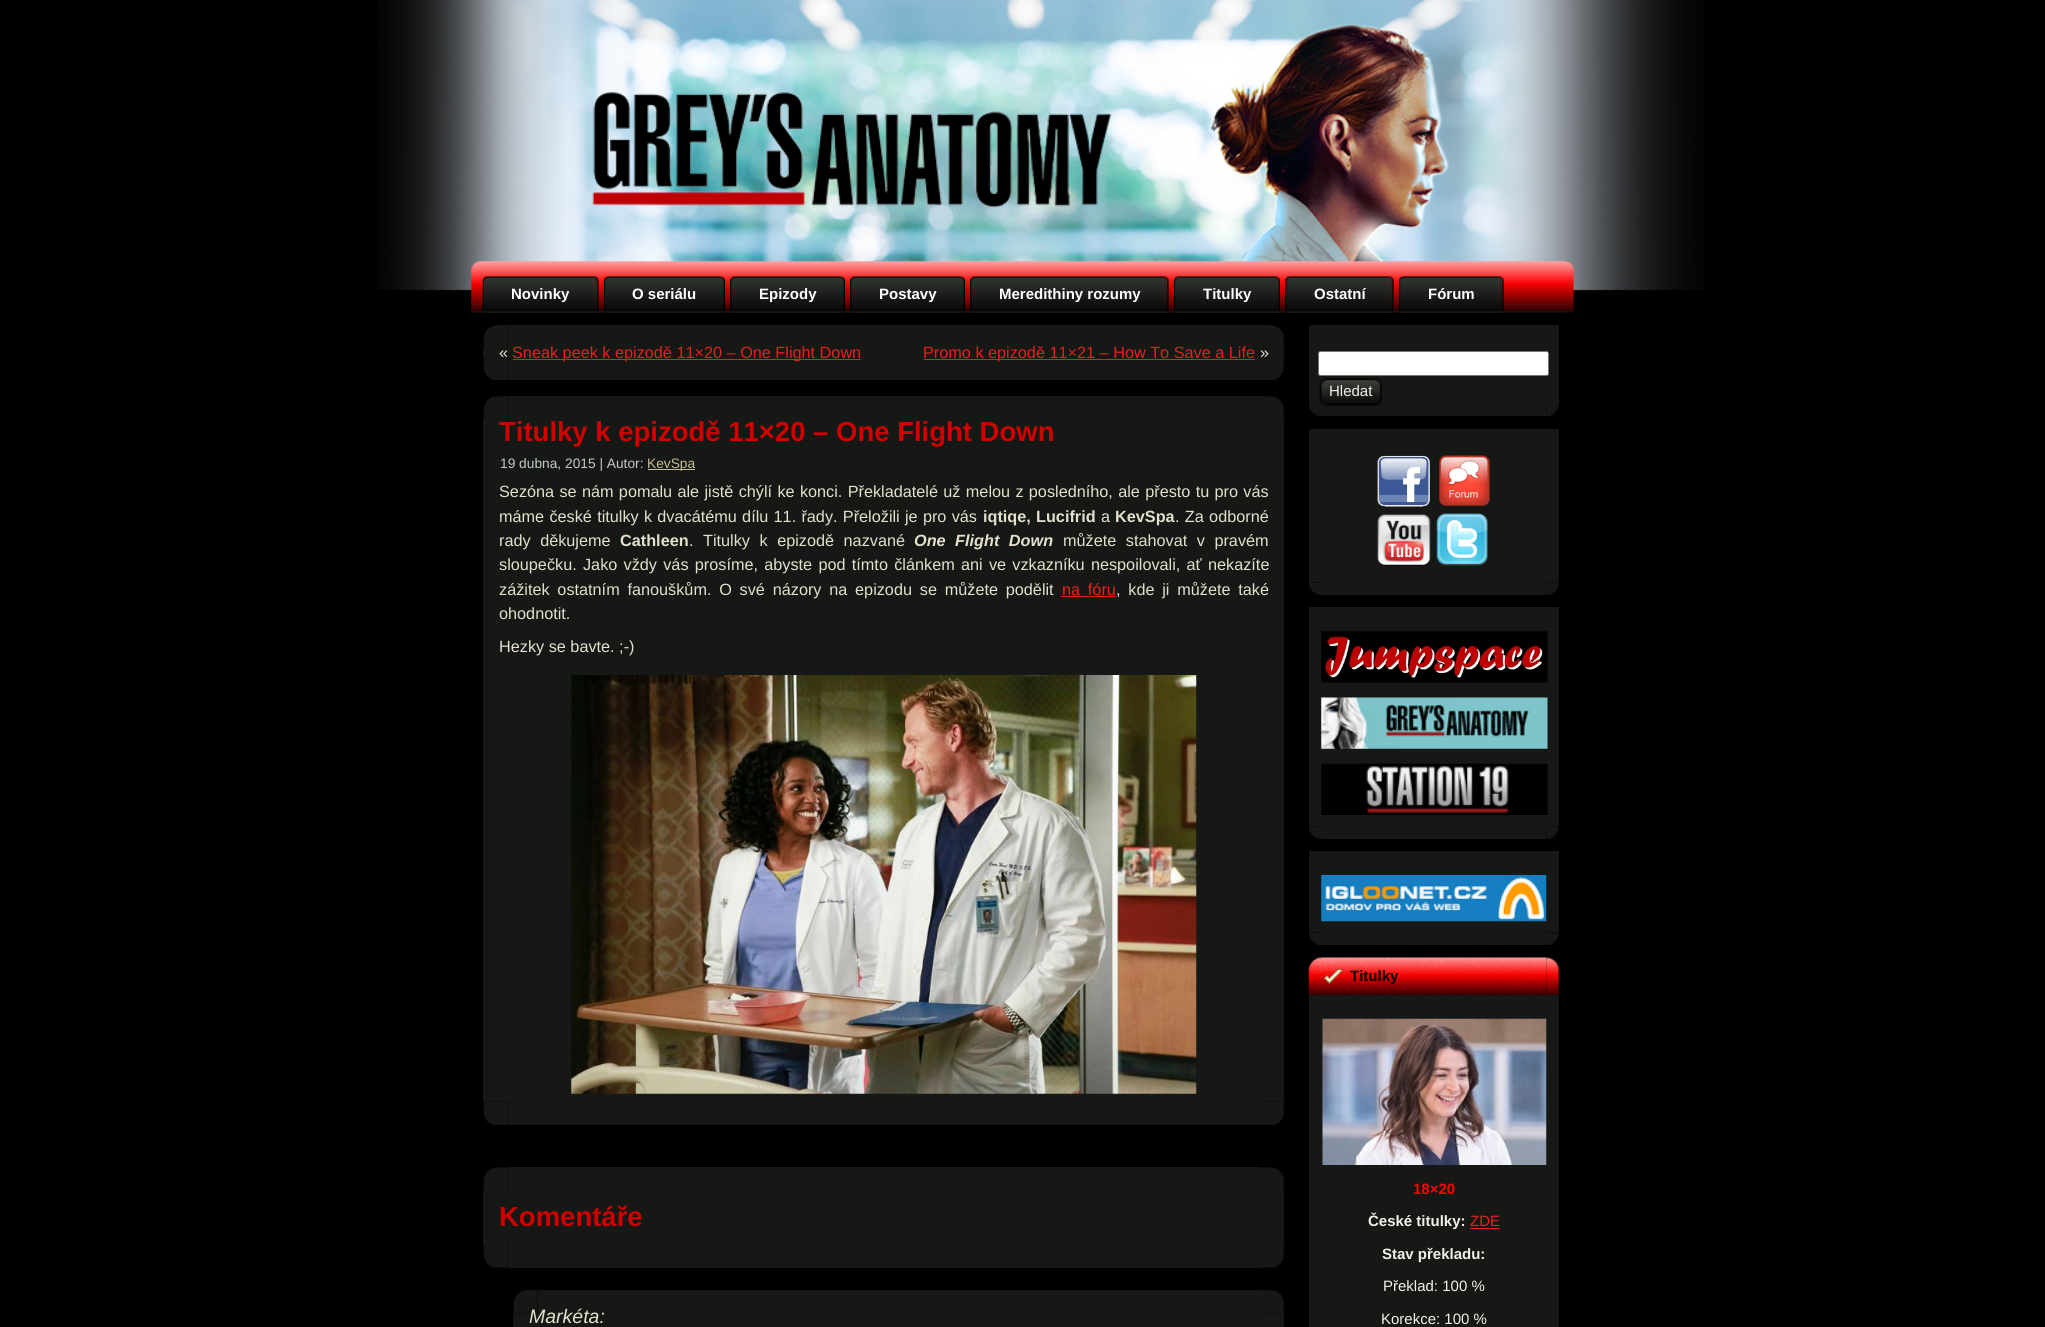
#include <cairo.h>
#include <math.h>
#include <stddef.h>


static void rgb(cairo_t *cr, int r, int g, int b)
{
	cairo_set_source_rgb(cr, r / 255.0, g / 255.0, b / 255.0);
}

static void face(cairo_t *cr, const char *family, double size, int italic, int bold)
{
	cairo_select_font_face(cr, family, italic ? CAIRO_FONT_SLANT_ITALIC : CAIRO_FONT_SLANT_NORMAL,
		bold ? CAIRO_FONT_WEIGHT_BOLD : CAIRO_FONT_WEIGHT_NORMAL);
	cairo_set_font_size(cr, size);
}

static void label(cairo_t *cr, double x, double y, const char *s)
{
	cairo_move_to(cr, x, y);
	cairo_show_text(cr, s);
}

static void tracked(cairo_t *cr, double x, double y, const char *s, double letter, double word)
{
	cairo_move_to(cr, x, y);
	while (*s) {
		char ch[5] = {0};
		int n = 0;
		do ch[n++] = *s++; while ((*s & 0xC0) == 0x80);
		cairo_show_text(cr, ch);
		cairo_rel_move_to(cr, letter + word * (*ch == ' '), 0);
	}
}

static void rect(cairo_t *cr, double x, double y, double w, double h)
{
	cairo_rectangle(cr, x, y, w, h);
	cairo_fill(cr);
}

static void rrect(cairo_t *cr, double x, double y, double w, double h, double r)
{
	cairo_new_sub_path(cr);
	cairo_arc(cr, x + w - r, y + h - r, r, 0, M_PI / 2);
	cairo_arc(cr, x + r, y + h - r, r, M_PI / 2, M_PI);
	cairo_arc(cr, x + r, y + r, r, M_PI, 1.5 * M_PI);
	cairo_arc(cr, x + w - r, y + r, r, 1.5 * M_PI, 2 * M_PI);
	cairo_close_path(cr);
}

static void image(cairo_t *cr, const char *path, double x, double y, double w, double h)
{
	cairo_surface_t *image = cairo_image_surface_create_from_png(path);
	cairo_save(cr);
	cairo_set_source_surface(cr, image, x, y);
	cairo_rectangle(cr, x, y, w, h);
	cairo_fill(cr);
	cairo_restore(cr);
	cairo_surface_destroy(image);
}

static void draw(cairo_t *cr) {
	rgb(cr, 0, 0, 0);
	cairo_paint(cr);
	image(cr, "image0.png", 377, 0, 1327, 291);
	image(cr, "image1.png", 471, 261, 1094, 52);
	image(cr, "image2.png", 1565, 261, 9, 52);
	image(cr, "image3.png", 482, 276, 112, 37);
	image(cr, "image4.png", 593, 276, 6, 37);
	face(cr, "Liberation Sans", 15, 0, 1);
	rgb(cr, 255, 255, 255);
	label(cr, 511, 299, "Novinky");
	image(cr, "image5.png", 603, 276, 117, 37);
	image(cr, "image6.png", 720, 276, 5, 37);
	label(cr, 632, 299, "O seriálu");
	image(cr, "image7.png", 730, 276, 110, 37);
	image(cr, "image8.png", 840, 276, 5, 37);
	label(cr, 759, 299, "Epizody");
	image(cr, "image9.png", 850, 276, 110, 37);
	image(cr, "image6.png", 960, 276, 5, 37);
	label(cr, 879, 299, "Postavy");
	image(cr, "image10.png", 970, 276, 194, 37);
	image(cr, "image4.png", 1163, 276, 6, 37);
	label(cr, 999, 299, "Meredithiny rozumy");
	image(cr, "image11.png", 1173, 276, 102, 37);
	image(cr, "image8.png", 1275, 276, 5, 37);
	label(cr, 1203, 299, "Titulky");
	image(cr, "image12.png", 1285, 276, 104, 37);
	image(cr, "image4.png", 1388, 276, 6, 37);
	label(cr, 1314, 299, "Ostatní");
	image(cr, "image13.png", 1398, 276, 101, 37);
	image(cr, "image4.png", 1498, 276, 6, 37);
	label(cr, 1428, 299, "Fórum");
	image(cr, "image14.png", 483, 325, 25, 24);
	rgb(cr, 22, 24, 22);
	rect(cr, 508, 325, 752, 24);
	image(cr, "image15.png", 1260, 325, 24, 24);
	rect(cr, 483, 349, 25, 7);
	image(cr, "image16.png", 483, 356, 25, 24);
	face(cr, "Liberation Sans", 16.25, 0, 0);
	rgb(cr, 229, 224, 204);
	label(cr, 499, 358, "«");
	rgb(cr, 22, 24, 22);
	rect(cr, 508, 356, 752, 24);
	rgb(cr, 233, 31, 28);
	rect(cr, 513, 359, 348, 1);
	rgb(cr, 22, 24, 22);
	rect(cr, 508, 349, 776, 7);
	rgb(cr, 233, 31, 28);
	label(cr, 512, 358, "Sneak peek k epizodě 11×20 – One Flight Down");
	rect(cr, 924, 359, 331, 1);
	label(cr, 923, 358, "Promo k epizodě 11×21 – How To Save a Life");
	image(cr, "image17.png", 1260, 356, 24, 24);
	rgb(cr, 229, 224, 204);
	label(cr, 1260, 358, "»");
	image(cr, "image18.png", 483, 396, 25, 24);
	rgb(cr, 22, 24, 22);
	rect(cr, 508, 396, 752, 24);
	image(cr, "image19.png", 1260, 396, 24, 24);
	rect(cr, 483, 420, 25, 681);
	rect(cr, 508, 420, 776, 681);
	face(cr, "Liberation Sans", 27.5, 0, 1);
	rgb(cr, 207, 2, 2);
	label(cr, 499, 441, "Titulky k epizodě 11×20 – One Flight Down");
	face(cr, "Liberation Sans", 13.75, 0, 0);
	rgb(cr, 197, 202, 196);
	label(cr, 500, 468, "19 dubna, 2015 | Autor:");
	rgb(cr, 200, 190, 146);
	rect(cr, 648, 469, 47, 1);
	label(cr, 647, 468, "KevSpa");
	face(cr, "Liberation Sans", 16.25, 0, 0);
	rgb(cr, 229, 224, 204);
	tracked(cr, 499, 497, "Sezóna se nám pomalu ale jistě chýlí ke konci. Překladatelé už melou z posledního, ale přesto tu pro vás", 0, 0.8);
	tracked(cr, 499, 522, "máme české titulky k dvacátému dílu 11. řady. Přeložili je pro vás", 0, 0.75);
	face(cr, "Liberation Sans", 16.25, 0, 1);
	label(cr, 983, 522, "iqtiqe,");
	label(cr, 1036, 522, "Lucifrid");
	face(cr, "Liberation Sans", 16.25, 0, 0);
	label(cr, 1101, 522, "a");
	face(cr, "Liberation Sans", 16.25, 0, 1);
	label(cr, 1115, 522, "KevSpa");
	face(cr, "Liberation Sans", 16.25, 0, 0);
	tracked(cr, 1175, 522, ". Za odborné", 0, 0.8);
	tracked(cr, 499, 546, "rady děkujeme", 0, 5);
	face(cr, "Liberation Sans", 16.25, 0, 1);
	label(cr, 620, 546, "Cathleen");
	face(cr, "Liberation Sans", 16.25, 0, 0);
	tracked(cr, 689, 546, ". Titulky k epizodě nazvané", 0, 5);
	face(cr, "Liberation Sans", 16.25, 1, 1);
	tracked(cr, 914, 546, "One Flight Down", 0, 5);
	face(cr, "Liberation Sans", 16.25, 0, 0);
	tracked(cr, 1063, 546, "můžete stahovat v pravém", 0, 5);
	tracked(cr, 499, 570, "sloupečku. Jako vždy vás prosíme, abyste pod tímto článkem ani ve vzkazníku nespoilovali, ať nekazíte", 0, 1.75);
	tracked(cr, 499, 595, "zážitek ostatním fanouškům. O své názory na epizodu se můžete podělit", 0, 3.25);
	rgb(cr, 233, 31, 28);
	tracked(cr, 1062, 595, "na fóru", 0, 3.25);
	rect(cr, 1061, 596, 54, 1);
	rgb(cr, 229, 224, 204);
	tracked(cr, 1116, 595, ", kde ji můžete také", 0, 3.25);
	label(cr, 499, 619, "ohodnotit.");
	label(cr, 499, 652, "Hezky se bavte. ;-)");
	image(cr, "image20.png", 571, 675, 626, 419);
	image(cr, "image16.png", 483, 1101, 25, 24);
	rgb(cr, 22, 24, 22);
	rect(cr, 508, 1101, 752, 24);
	image(cr, "image17.png", 1260, 1101, 24, 24);
	image(cr, "image21.png", 483, 1167, 25, 24);
	rect(cr, 508, 1167, 752, 24);
	image(cr, "image22.png", 1260, 1167, 24, 24);
	rect(cr, 483, 1191, 25, 53);
	rect(cr, 508, 1191, 776, 53);
	face(cr, "Liberation Sans", 27.5, 0, 1);
	rgb(cr, 207, 2, 2);
	label(cr, 499, 1226, "Komentáře");
	image(cr, "image23.png", 483, 1244, 25, 24);
	rgb(cr, 22, 24, 22);
	rect(cr, 508, 1244, 752, 24);
	image(cr, "image24.png", 1260, 1244, 24, 24);
	image(cr, "image25.png", 513, 1290, 25, 24);
	rect(cr, 538, 1290, 722, 24);
	image(cr, "image15.png", 1260, 1290, 24, 24);
	rect(cr, 513, 1314, 25, 13);
	rect(cr, 538, 1314, 746, 13);
	face(cr, "Liberation Sans", 19.5, 1, 0);
	rgb(cr, 229, 224, 204);
	label(cr, 529, 1323, "Markéta:");
	rgb(cr, 22, 24, 22);
	rect(cr, 1309, 325, 13, 13);
	rect(cr, 1322, 325, 237, 13);
	rect(cr, 1309, 338, 12, 66);
	rect(cr, 1321, 338, 238, 66);
	rgb(cr, 255, 255, 255);
	rrect(cr, 1318.5, 351.5, 230, 24, 2);
	cairo_fill_preserve(cr);
	rgb(cr, 118, 118, 118);
	cairo_set_line_width(cr, 1);
	cairo_stroke(cr);
	image(cr, "image28.png", 1309, 404, 12, 12);
	rgb(cr, 22, 24, 22);
	rect(cr, 1321, 404, 225, 12);
	image(cr, "image26.png", 1319, 377, 53, 30);
	image(cr, "image27.png", 1371, 377, 12, 30);
	face(cr, "Liberation Sans", 15, 0, 0);
	rgb(cr, 243, 241, 231);
	label(cr, 1329, 396, "Hledat");
	image(cr, "image29.png", 1546, 404, 13, 12);
	rgb(cr, 22, 24, 22);
	rect(cr, 1309, 429, 13, 13);
	rect(cr, 1322, 429, 224, 12);
	rect(cr, 1546, 429, 13, 153);
	rect(cr, 1309, 442, 12, 140);
	rect(cr, 1321, 441, 225, 154);
	image(cr, "image30.png", 1377, 455, 53, 52);
	image(cr, "image31.png", 1439, 455, 51, 51);
	image(cr, "image32.png", 1377, 514, 54, 52);
	image(cr, "image33.png", 1436, 513, 52, 53);
	image(cr, "image34.png", 1309, 582, 12, 13);
	image(cr, "image35.png", 1546, 582, 13, 13);
	rect(cr, 1309, 607, 13, 13);
	rect(cr, 1322, 607, 237, 13);
	rect(cr, 1309, 620, 12, 206);
	rect(cr, 1321, 620, 238, 206);
	image(cr, "image36.png", 1321, 631, 227, 52);
	image(cr, "image37.png", 1321, 697, 227, 52);
	image(cr, "image38.png", 1321, 763, 227, 52);
	image(cr, "image39.png", 1309, 826, 12, 13);
	rect(cr, 1321, 826, 225, 13);
	image(cr, "image40.png", 1546, 826, 13, 13);
	rect(cr, 1309, 851, 13, 13);
	rect(cr, 1322, 851, 237, 13);
	rect(cr, 1309, 864, 12, 68);
	rect(cr, 1321, 864, 225, 81);
	rect(cr, 1546, 864, 13, 68);
	image(cr, "image41.png", 1321, 875, 226, 47);
	image(cr, "image42.png", 1309, 932, 12, 13);
	image(cr, "image43.png", 1546, 932, 13, 13);
	image(cr, "image44.png", 1308, 957, 239, 38);
	image(cr, "image45.png", 1546, 957, 13, 38);
	image(cr, "image46.png", 1323, 968, 20, 16);
	face(cr, "Liberation Sans", 15, 0, 1);
	rgb(cr, 0, 0, 0);
	label(cr, 1350, 981, "Titulky");
	rgb(cr, 22, 24, 22);
	rect(cr, 1309, 995, 13, 13);
	rect(cr, 1322, 995, 237, 13);
	rect(cr, 1309, 1008, 12, 319);
	rect(cr, 1321, 1008, 238, 319);
	image(cr, "image47.png", 1322, 1018, 225, 147);
	rgb(cr, 255, 0, 0);
	label(cr, 1413, 1194, "18×20");
	rgb(cr, 243, 241, 231);
	label(cr, 1368, 1226, "České titulky:");
	face(cr, "Liberation Sans", 15, 0, 0);
	rgb(cr, 233, 31, 28);
	label(cr, 1470, 1226, "ZDE");
	rect(cr, 1470, 1228, 30, 1);
	face(cr, "Liberation Sans", 15, 0, 1);
	rgb(cr, 243, 241, 231);
	label(cr, 1382, 1259, "Stav překladu:");
	face(cr, "Liberation Sans", 15, 0, 0);
	label(cr, 1383, 1291, "Překlad: 100 %");
	label(cr, 1381, 1324, "Korekce: 100 %");
}

int main(void) {
	cairo_surface_t *surface = cairo_image_surface_create(CAIRO_FORMAT_RGB24, 2045, 1327);
	cairo_t *cr = cairo_create(surface);
	cairo_font_options_t *options = cairo_font_options_create();
	cairo_font_options_set_hint_metrics(options, CAIRO_HINT_METRICS_OFF);
	cairo_font_options_set_hint_style(options, CAIRO_HINT_STYLE_NONE);
	cairo_set_font_options(cr, options);
	cairo_set_miter_limit(cr, 4);
	draw(cr);
	cairo_surface_write_to_png(surface, "render.png");
	cairo_font_options_destroy(options);
	cairo_destroy(cr);
	cairo_surface_destroy(surface);
	return 0;
}
